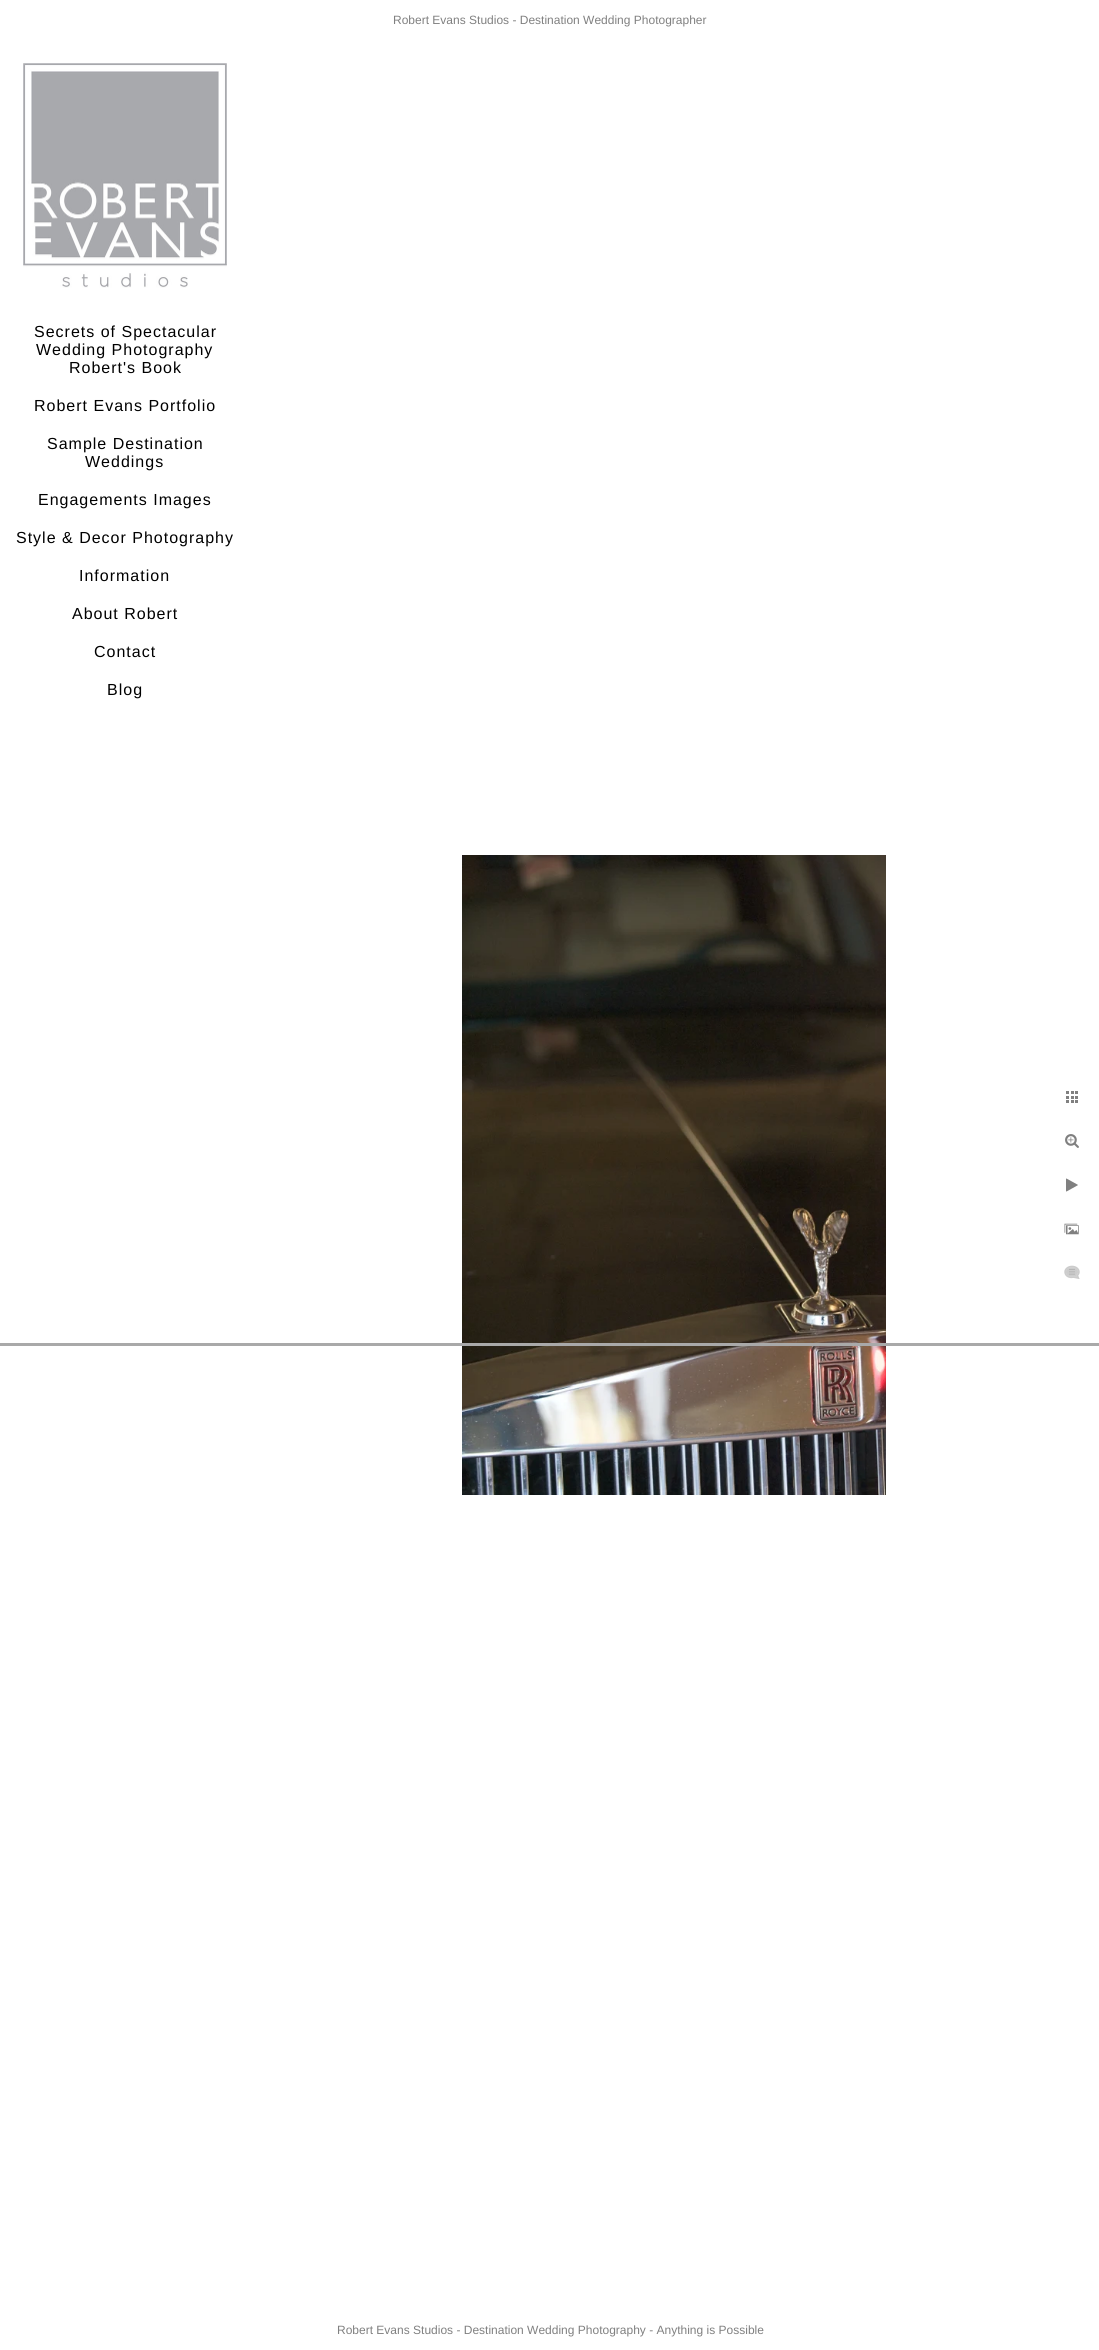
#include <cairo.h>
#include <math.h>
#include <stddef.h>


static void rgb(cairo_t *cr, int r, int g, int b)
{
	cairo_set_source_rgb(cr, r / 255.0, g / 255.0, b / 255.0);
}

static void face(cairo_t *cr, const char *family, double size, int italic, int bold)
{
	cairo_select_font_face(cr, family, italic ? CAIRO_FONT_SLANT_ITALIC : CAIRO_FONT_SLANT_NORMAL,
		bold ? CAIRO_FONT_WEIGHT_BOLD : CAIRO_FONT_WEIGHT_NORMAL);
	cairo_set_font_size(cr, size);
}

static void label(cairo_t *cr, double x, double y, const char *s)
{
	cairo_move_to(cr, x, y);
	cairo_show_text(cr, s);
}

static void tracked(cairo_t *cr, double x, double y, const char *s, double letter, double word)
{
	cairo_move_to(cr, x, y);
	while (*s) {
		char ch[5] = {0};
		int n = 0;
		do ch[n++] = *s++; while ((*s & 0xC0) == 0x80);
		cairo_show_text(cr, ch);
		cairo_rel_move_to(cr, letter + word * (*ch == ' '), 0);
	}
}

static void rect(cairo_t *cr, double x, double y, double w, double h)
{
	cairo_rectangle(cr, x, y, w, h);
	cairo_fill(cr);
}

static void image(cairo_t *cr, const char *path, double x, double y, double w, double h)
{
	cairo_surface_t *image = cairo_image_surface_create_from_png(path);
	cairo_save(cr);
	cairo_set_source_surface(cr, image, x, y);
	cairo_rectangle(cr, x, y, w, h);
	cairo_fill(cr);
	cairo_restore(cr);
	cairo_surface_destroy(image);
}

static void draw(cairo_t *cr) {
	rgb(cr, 255, 255, 255);
	cairo_paint(cr);
	face(cr, "Liberation Sans", 12, 0, 0);
	rgb(cr, 128, 128, 128);
	label(cr, 393, 24, "Robert Evans Studios - Destination Wedding Photographer");
	image(cr, "image0.png", 23, 63, 204, 225);
	face(cr, "Liberation Sans", 16, 0, 0);
	rgb(cr, 0, 0, 0);
	tracked(cr, 34, 337, "Secrets of Spectacular", 1, 0);
	tracked(cr, 36, 355, "Wedding Photography", 1, 0);
	tracked(cr, 69, 373, "Robert's Book", 1, 0);
	tracked(cr, 34, 411, "Robert Evans Portfolio", 1, 0);
	tracked(cr, 47, 449, "Sample Destination", 1, 0);
	tracked(cr, 85, 467, "Weddings", 1, 0);
	tracked(cr, 38, 505, "Engagements Images", 1, 0);
	tracked(cr, 16, 543, "Style & Decor Photography", 1, 0);
	tracked(cr, 79, 581, "Information", 1, 0);
	tracked(cr, 72, 619, "About Robert", 1, 0);
	tracked(cr, 94, 657, "Contact", 1, 0);
	tracked(cr, 107, 695, "Blog", 1, 0);
	image(cr, "image1.png", 462, 855, 424, 640);
	image(cr, "image2.png", 1066, 1091, 12, 12);
	image(cr, "image3.png", 1065, 1134, 14, 14);
	image(cr, "image4.png", 1066, 1178, 12, 14);
	image(cr, "image5.png", 1064, 1223, 15, 12);
	image(cr, "image6.png", 1064, 1265, 16, 14);
	rgb(cr, 169, 169, 169);
	rect(cr, 0, 1343, 1099, 3);
	face(cr, "Liberation Sans", 12, 0, 0);
	rgb(cr, 128, 128, 128);
	label(cr, 337, 2334, "Robert Evans Studios - Destination Wedding Photography - Anything is Possible");
}

int main(void) {
	cairo_surface_t *surface = cairo_image_surface_create(CAIRO_FORMAT_RGB24, 1099, 2350);
	cairo_t *cr = cairo_create(surface);
	cairo_font_options_t *options = cairo_font_options_create();
	cairo_font_options_set_hint_metrics(options, CAIRO_HINT_METRICS_OFF);
	cairo_font_options_set_hint_style(options, CAIRO_HINT_STYLE_NONE);
	cairo_set_font_options(cr, options);
	cairo_set_miter_limit(cr, 4);
	draw(cr);
	cairo_surface_write_to_png(surface, "render.png");
	cairo_font_options_destroy(options);
	cairo_destroy(cr);
	cairo_surface_destroy(surface);
	return 0;
}
